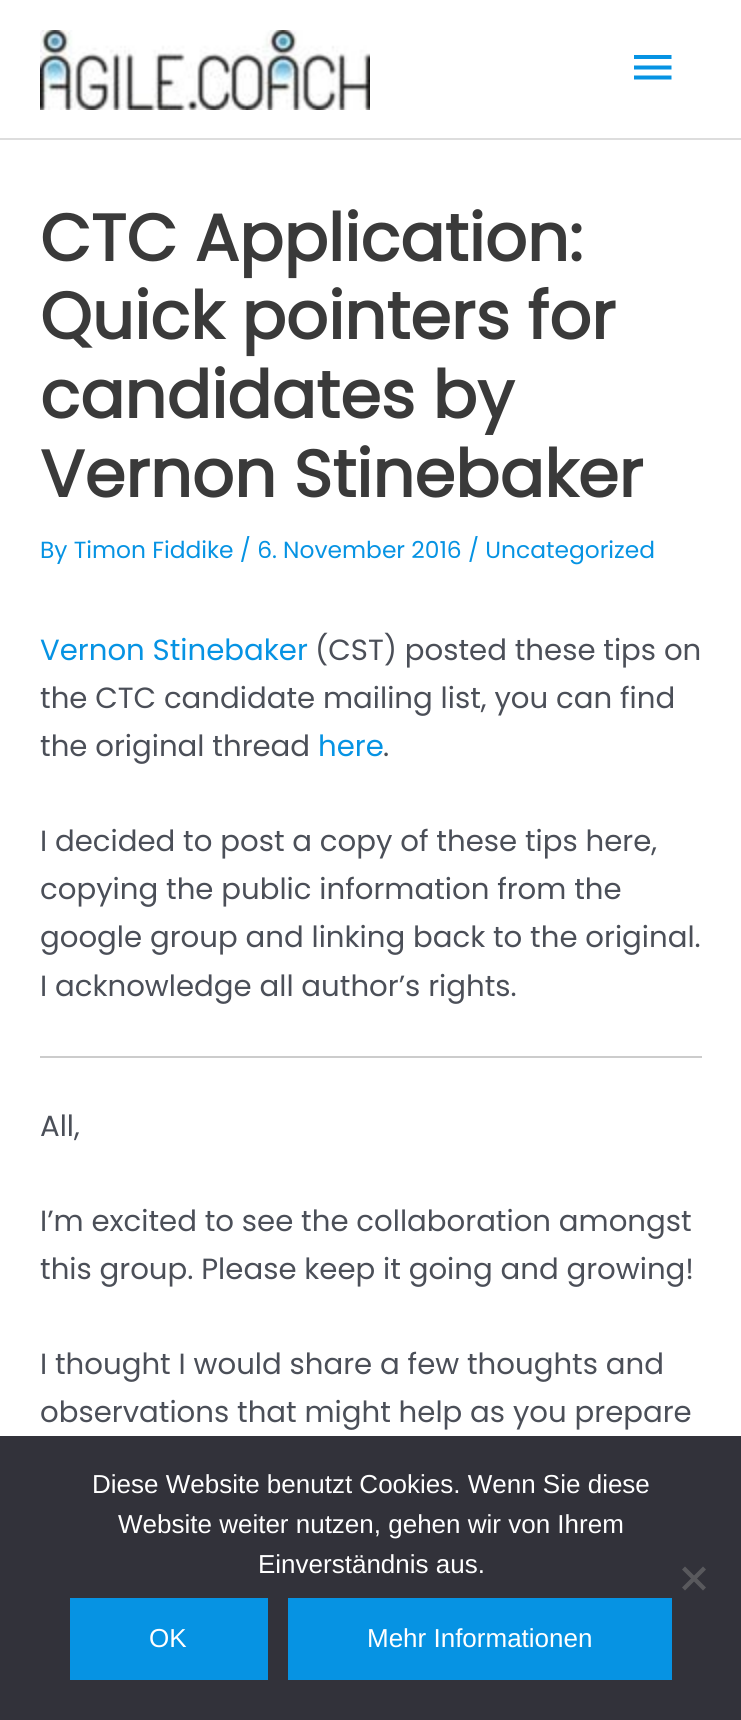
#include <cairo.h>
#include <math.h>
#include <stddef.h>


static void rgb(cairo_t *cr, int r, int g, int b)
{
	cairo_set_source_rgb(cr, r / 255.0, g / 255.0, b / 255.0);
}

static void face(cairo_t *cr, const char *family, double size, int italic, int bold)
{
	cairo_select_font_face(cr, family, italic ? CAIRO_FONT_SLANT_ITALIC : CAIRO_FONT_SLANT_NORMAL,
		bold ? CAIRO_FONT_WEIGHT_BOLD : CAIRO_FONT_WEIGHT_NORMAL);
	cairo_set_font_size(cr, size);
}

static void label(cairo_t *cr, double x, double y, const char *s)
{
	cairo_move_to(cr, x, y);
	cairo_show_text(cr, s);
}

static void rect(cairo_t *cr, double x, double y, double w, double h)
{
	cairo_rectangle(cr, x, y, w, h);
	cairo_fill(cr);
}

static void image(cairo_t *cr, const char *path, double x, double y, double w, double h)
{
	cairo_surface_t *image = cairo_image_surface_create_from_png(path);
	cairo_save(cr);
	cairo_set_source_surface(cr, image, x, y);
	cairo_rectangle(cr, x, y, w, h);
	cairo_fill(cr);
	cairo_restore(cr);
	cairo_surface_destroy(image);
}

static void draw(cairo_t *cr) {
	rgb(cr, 255, 255, 255);
	cairo_paint(cr);
	rgb(cr, 221, 221, 221);
	rect(cr, 0, 138, 741, 2);
	image(cr, "image0.png", 40, 30, 330, 80);
	rgb(cr, 6, 147, 227);
	cairo_new_path(cr);
	cairo_move_to(cr, 634, 55);
	cairo_line_to(cr, 671.5, 55);
	cairo_line_to(cr, 671.5, 59);
	cairo_line_to(cr, 634, 59);
	cairo_close_path(cr);
	cairo_move_to(cr, 634, 69.5);
	cairo_line_to(cr, 634, 65.5);
	cairo_line_to(cr, 671.5, 65.5);
	cairo_line_to(cr, 671.5, 69.5);
	cairo_close_path(cr);
	cairo_move_to(cr, 634, 79.5);
	cairo_line_to(cr, 634, 75.5);
	cairo_line_to(cr, 671.5, 75.5);
	cairo_line_to(cr, 671.5, 79.5);
	cairo_close_path(cr);
	cairo_fill(cr);
	face(cr, "Poppins", 65.75, 0, 1);
	rgb(cr, 58, 58, 58);
	label(cr, 40, 261, "CTC Application:");
	label(cr, 40, 339, "Quick pointers for");
	label(cr, 40, 418, "candidates by");
	label(cr, 40, 497, "Vernon Stinebaker");
	face(cr, "Poppins", 23.35, 0, 0);
	rgb(cr, 6, 147, 227);
	label(cr, 40, 558, "By Timon Fiddike / 6. November 2016 / Uncategorized");
	face(cr, "Poppins", 29.2, 0, 0);
	label(cr, 40, 660, "Vernon Stinebaker");
	rgb(cr, 75, 79, 88);
	label(cr, 315, 660, "(CST) posted these tips on");
	label(cr, 40, 708, "the CTC candidate mailing list, you can find");
	label(cr, 40, 756, "the original thread");
	rgb(cr, 6, 147, 227);
	label(cr, 318, 756, "here");
	rgb(cr, 75, 79, 88);
	label(cr, 383, 756, ".");
	label(cr, 40, 851, "I decided to post a copy of these tips here,");
	label(cr, 40, 899, "copying the public information from the");
	label(cr, 40, 947, "google group and linking back to the original.");
	label(cr, 40, 996, "I acknowledge all author’s rights.");
	rgb(cr, 204, 204, 204);
	rect(cr, 40, 1056, 662, 2);
	rgb(cr, 75, 79, 88);
	label(cr, 40, 1136, "All,");
	label(cr, 40, 1231, "I’m excited to see the collaboration amongst");
	label(cr, 40, 1279, "this group. Please keep it going and growing!");
	label(cr, 40, 1374, "I thought I would share a few thoughts and");
	label(cr, 40, 1422, "observations that might help as you prepare");
	rgb(cr, 50, 50, 58);
	rect(cr, 0, 1436, 741, 284);
	face(cr, "Liberation Sans", 26, 0, 0);
	rgb(cr, 255, 255, 255);
	label(cr, 92, 1493, "Diese Website benutzt Cookies. Wenn Sie diese");
	label(cr, 118, 1533, "Website weiter nutzen, gehen wir von Ihrem");
	label(cr, 258, 1573, "Einverständnis aus.");
	rgb(cr, 89, 89, 93);
	cairo_new_path(cr);
	cairo_move_to(cr, 703, 1566.5);
	cairo_line_to(cr, 706, 1569.5);
	cairo_line_to(cr, 685, 1590.5);
	cairo_line_to(cr, 682, 1587.5);
	cairo_close_path(cr);
	cairo_fill(cr);
	cairo_new_path(cr);
	cairo_move_to(cr, 682, 1569.5);
	cairo_line_to(cr, 685, 1566.5);
	cairo_line_to(cr, 706, 1587.5);
	cairo_line_to(cr, 703, 1590.5);
	cairo_close_path(cr);
	cairo_fill(cr);
	rgb(cr, 6, 147, 227);
	rect(cr, 70, 1598, 198, 82);
	rgb(cr, 255, 255, 255);
	label(cr, 149, 1647, "OK");
	rgb(cr, 6, 147, 227);
	rect(cr, 288, 1598, 384, 82);
	rgb(cr, 255, 255, 255);
	label(cr, 367, 1647, "Mehr Informationen");
}

int main(void) {
	cairo_surface_t *surface = cairo_image_surface_create(CAIRO_FORMAT_RGB24, 741, 1720);
	cairo_t *cr = cairo_create(surface);
	cairo_font_options_t *options = cairo_font_options_create();
	cairo_font_options_set_hint_metrics(options, CAIRO_HINT_METRICS_OFF);
	cairo_font_options_set_hint_style(options, CAIRO_HINT_STYLE_NONE);
	cairo_set_font_options(cr, options);
	cairo_set_miter_limit(cr, 4);
	draw(cr);
	cairo_surface_write_to_png(surface, "render.png");
	cairo_font_options_destroy(options);
	cairo_destroy(cr);
	cairo_surface_destroy(surface);
	return 0;
}
